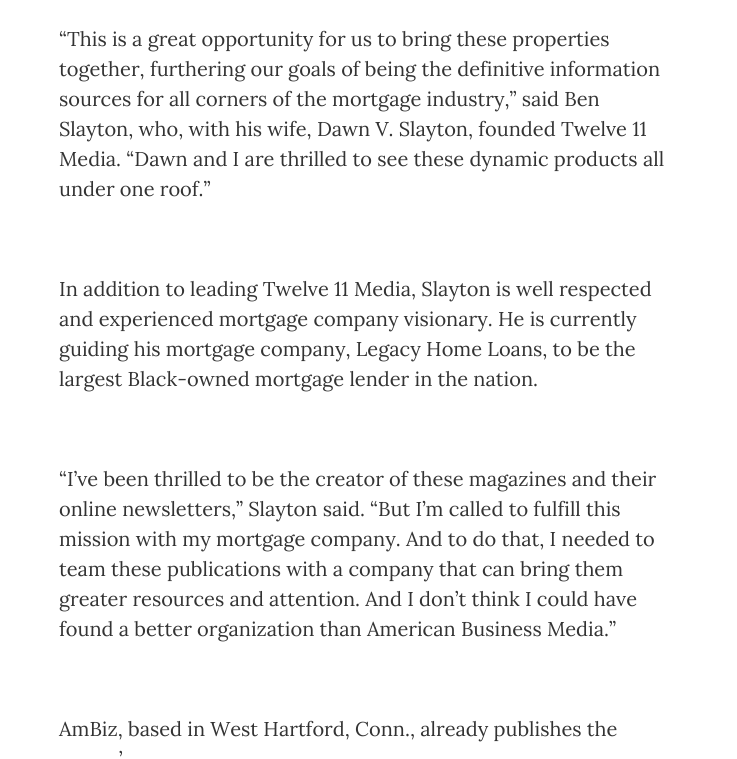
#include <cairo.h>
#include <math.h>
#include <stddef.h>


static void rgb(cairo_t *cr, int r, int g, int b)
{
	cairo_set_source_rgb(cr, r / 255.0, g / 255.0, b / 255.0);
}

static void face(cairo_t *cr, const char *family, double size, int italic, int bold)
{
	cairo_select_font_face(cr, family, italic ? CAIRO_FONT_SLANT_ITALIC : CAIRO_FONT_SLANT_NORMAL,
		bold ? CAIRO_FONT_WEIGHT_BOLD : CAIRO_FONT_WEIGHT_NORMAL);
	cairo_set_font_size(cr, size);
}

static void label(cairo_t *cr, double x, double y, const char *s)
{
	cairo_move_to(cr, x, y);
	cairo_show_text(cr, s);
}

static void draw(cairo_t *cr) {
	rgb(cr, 255, 255, 255);
	cairo_paint(cr);
	face(cr, "Lora", 20, 0, 0);
	rgb(cr, 51, 51, 51);
	label(cr, 59, 46, "“This is a great opportunity for us to bring these properties");
	label(cr, 59, 76, "together, furthering our goals of being the definitive information");
	label(cr, 59, 106, "sources for all corners of the mortgage industry,” said Ben");
	label(cr, 59, 136, "Slayton, who, with his wife, Dawn V. Slayton, founded Twelve 11");
	label(cr, 59, 166, "Media. “Dawn and I are thrilled to see these dynamic products all");
	label(cr, 59, 196, "under one roof.”");
	label(cr, 59, 296, "In addition to leading Twelve 11 Media, Slayton is well respected");
	label(cr, 59, 326, "and experienced mortgage company visionary. He is currently");
	label(cr, 59, 356, "guiding his mortgage company, Legacy Home Loans, to be the");
	label(cr, 59, 386, "largest Black-owned mortgage lender in the nation.");
	label(cr, 59, 486, "“I’ve been thrilled to be the creator of these magazines and their");
	label(cr, 59, 516, "online newsletters,” Slayton said. “But I’m called to fulfill this");
	label(cr, 59, 546, "mission with my mortgage company. And to do that, I needed to");
	label(cr, 59, 576, "team these publications with a company that can bring them");
	label(cr, 59, 606, "greater resources and attention. And I don’t think I could have");
	label(cr, 59, 636, "found a better organization than American Business Media.”");
	label(cr, 59, 736, "AmBiz, based in West Hartford, Conn., already publishes the");
	label(cr, 119, 766, "’");
}

int main(void) {
	cairo_surface_t *surface = cairo_image_surface_create(CAIRO_FORMAT_RGB24, 737, 759);
	cairo_t *cr = cairo_create(surface);
	cairo_font_options_t *options = cairo_font_options_create();
	cairo_font_options_set_hint_metrics(options, CAIRO_HINT_METRICS_OFF);
	cairo_font_options_set_hint_style(options, CAIRO_HINT_STYLE_NONE);
	cairo_set_font_options(cr, options);
	cairo_set_miter_limit(cr, 4);
	draw(cr);
	cairo_surface_write_to_png(surface, "render.png");
	cairo_font_options_destroy(options);
	cairo_destroy(cr);
	cairo_surface_destroy(surface);
	return 0;
}
